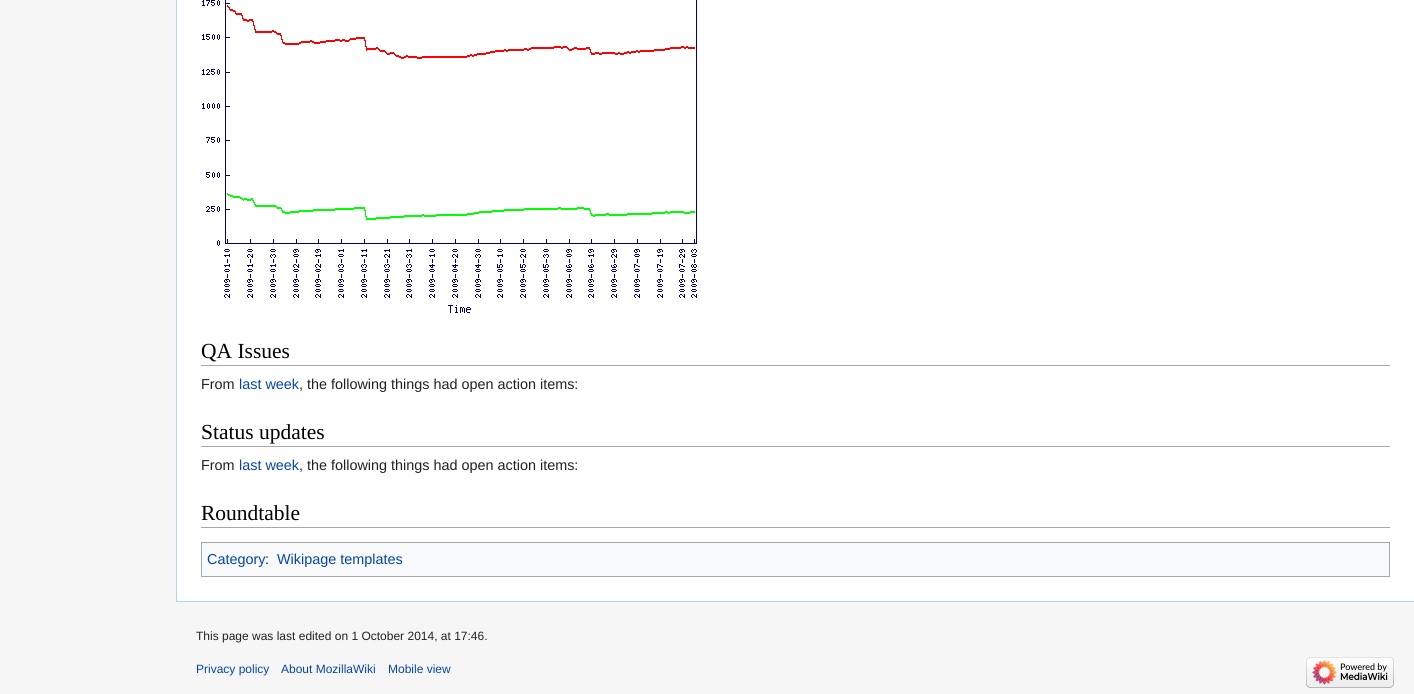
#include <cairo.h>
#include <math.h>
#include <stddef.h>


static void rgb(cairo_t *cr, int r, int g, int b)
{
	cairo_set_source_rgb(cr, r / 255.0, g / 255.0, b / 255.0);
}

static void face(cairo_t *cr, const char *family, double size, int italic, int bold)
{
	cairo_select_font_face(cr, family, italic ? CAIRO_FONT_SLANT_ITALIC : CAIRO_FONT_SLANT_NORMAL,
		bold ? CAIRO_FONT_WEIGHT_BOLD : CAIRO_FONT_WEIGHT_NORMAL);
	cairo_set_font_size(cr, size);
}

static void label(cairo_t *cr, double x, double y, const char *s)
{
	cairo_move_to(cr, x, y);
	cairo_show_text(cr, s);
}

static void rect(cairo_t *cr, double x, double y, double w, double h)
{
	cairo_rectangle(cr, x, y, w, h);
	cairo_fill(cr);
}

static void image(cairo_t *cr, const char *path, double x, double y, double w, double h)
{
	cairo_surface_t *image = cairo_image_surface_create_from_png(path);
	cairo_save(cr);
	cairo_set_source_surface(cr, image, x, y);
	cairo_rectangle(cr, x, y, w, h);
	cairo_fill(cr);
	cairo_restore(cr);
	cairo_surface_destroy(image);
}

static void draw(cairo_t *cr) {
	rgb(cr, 246, 246, 246);
	cairo_paint(cr);
	rgb(cr, 255, 255, 255);
	rect(cr, 177, 0, 1237, 601);
	rgb(cr, 167, 215, 249);
	rect(cr, 176, 601, 1238, 1);
	rect(cr, 176, 0, 1, 602);
	image(cr, "image0.png", 202, 0, 495, 313);
	rgb(cr, 162, 169, 177);
	rect(cr, 201, 365, 1189, 1);
	face(cr, "Liberation Serif", 21.5, 0, 0);
	rgb(cr, 0, 0, 0);
	label(cr, 201, 358, "QA Issues");
	face(cr, "Liberation Sans", 14.4, 0, 0);
	rgb(cr, 32, 33, 34);
	label(cr, 201, 389, "From");
	rgb(cr, 6, 69, 173);
	label(cr, 239, 389, "last week");
	rgb(cr, 32, 33, 34);
	label(cr, 299, 389, ", the following things had open action items:");
	rgb(cr, 162, 169, 177);
	rect(cr, 201, 446, 1189, 1);
	face(cr, "Liberation Serif", 21.5, 0, 0);
	rgb(cr, 0, 0, 0);
	label(cr, 201, 439, "Status updates");
	face(cr, "Liberation Sans", 14.4, 0, 0);
	rgb(cr, 32, 33, 34);
	label(cr, 201, 470, "From");
	rgb(cr, 6, 69, 173);
	label(cr, 239, 470, "last week");
	rgb(cr, 32, 33, 34);
	label(cr, 299, 470, ", the following things had open action items:");
	rgb(cr, 162, 169, 177);
	rect(cr, 201, 527, 1189, 1);
	face(cr, "Liberation Serif", 21.5, 0, 0);
	rgb(cr, 0, 0, 0);
	label(cr, 201, 520, "Roundtable");
	rgb(cr, 248, 249, 250);
	cairo_rectangle(cr, 201.5, 542.5, 1188, 34);
	cairo_fill_preserve(cr);
	rgb(cr, 162, 169, 177);
	cairo_set_line_width(cr, 1);
	cairo_stroke(cr);
	face(cr, "Liberation Sans", 14.4, 0, 0);
	rgb(cr, 6, 69, 173);
	label(cr, 207, 564, "Category");
	rgb(cr, 32, 33, 34);
	label(cr, 265, 564, ":");
	rgb(cr, 6, 69, 173);
	label(cr, 277, 564, "Wikipage templates");
	face(cr, "Liberation Sans", 12, 0, 0);
	rgb(cr, 32, 33, 34);
	label(cr, 196, 640, "This page was last edited on 1 October 2014, at 17:46.");
	rgb(cr, 6, 69, 173);
	label(cr, 196, 673, "Privacy policy");
	label(cr, 281, 673, "About MozillaWiki");
	label(cr, 388, 673, "Mobile view");
	image(cr, "image1.png", 1306, 657, 88, 31);
}

int main(void) {
	cairo_surface_t *surface = cairo_image_surface_create(CAIRO_FORMAT_RGB24, 1414, 694);
	cairo_t *cr = cairo_create(surface);
	cairo_font_options_t *options = cairo_font_options_create();
	cairo_font_options_set_hint_metrics(options, CAIRO_HINT_METRICS_OFF);
	cairo_font_options_set_hint_style(options, CAIRO_HINT_STYLE_NONE);
	cairo_set_font_options(cr, options);
	cairo_set_miter_limit(cr, 4);
	draw(cr);
	cairo_surface_write_to_png(surface, "render.png");
	cairo_font_options_destroy(options);
	cairo_destroy(cr);
	cairo_surface_destroy(surface);
	return 0;
}
